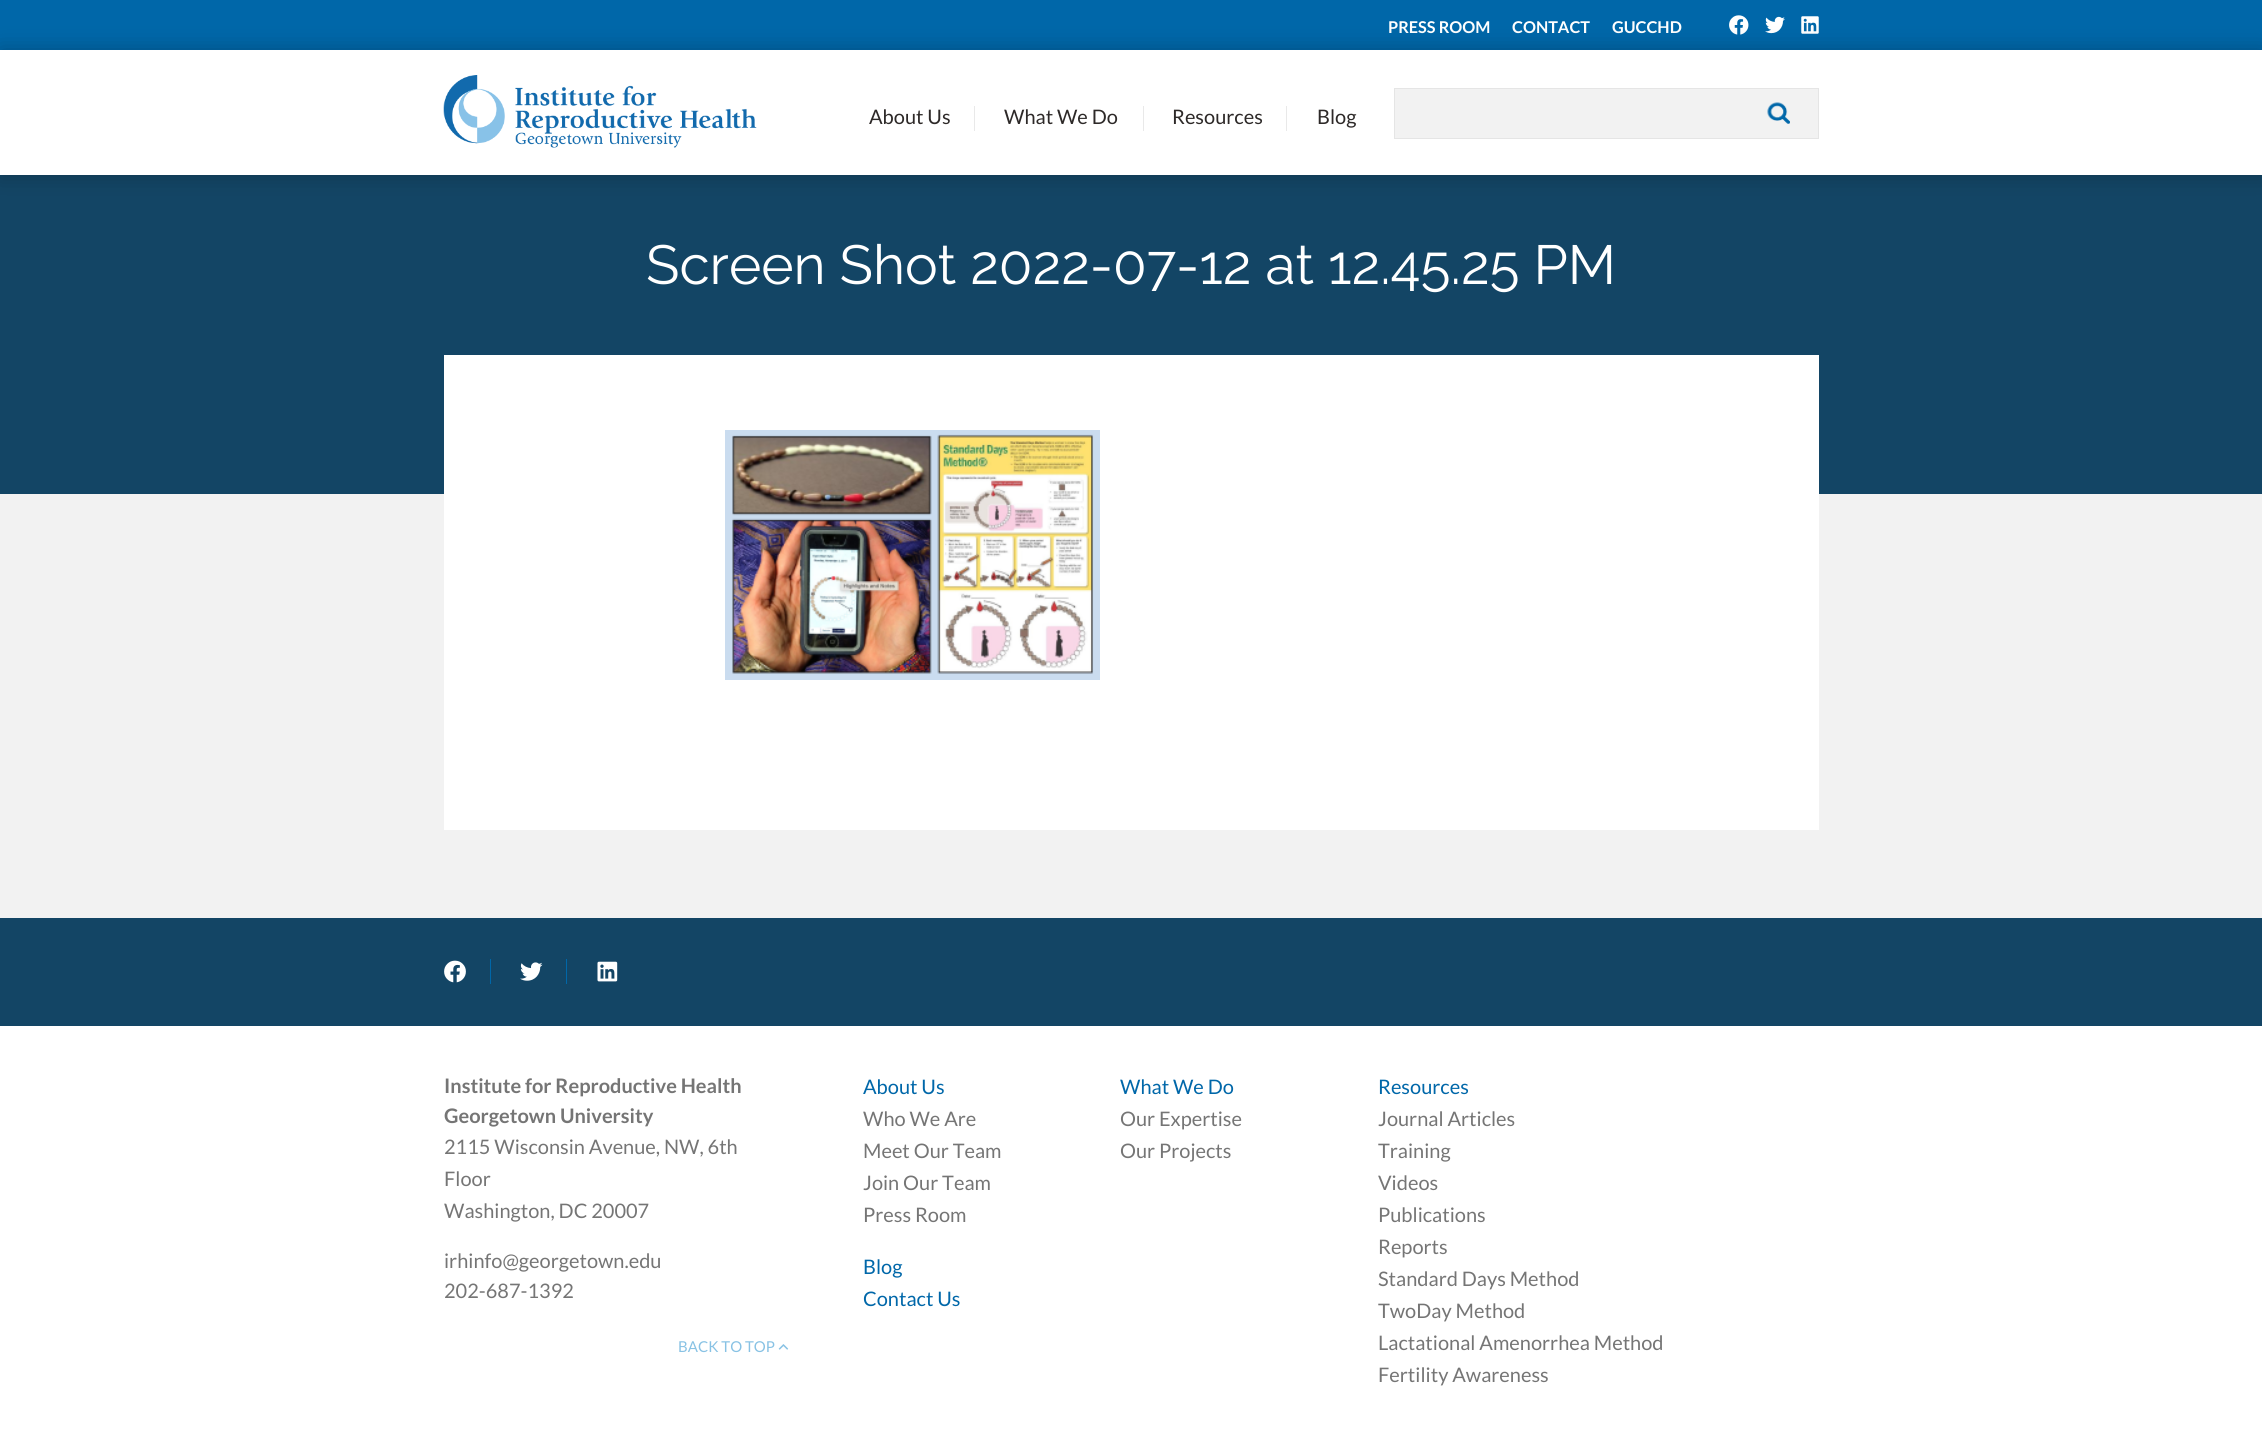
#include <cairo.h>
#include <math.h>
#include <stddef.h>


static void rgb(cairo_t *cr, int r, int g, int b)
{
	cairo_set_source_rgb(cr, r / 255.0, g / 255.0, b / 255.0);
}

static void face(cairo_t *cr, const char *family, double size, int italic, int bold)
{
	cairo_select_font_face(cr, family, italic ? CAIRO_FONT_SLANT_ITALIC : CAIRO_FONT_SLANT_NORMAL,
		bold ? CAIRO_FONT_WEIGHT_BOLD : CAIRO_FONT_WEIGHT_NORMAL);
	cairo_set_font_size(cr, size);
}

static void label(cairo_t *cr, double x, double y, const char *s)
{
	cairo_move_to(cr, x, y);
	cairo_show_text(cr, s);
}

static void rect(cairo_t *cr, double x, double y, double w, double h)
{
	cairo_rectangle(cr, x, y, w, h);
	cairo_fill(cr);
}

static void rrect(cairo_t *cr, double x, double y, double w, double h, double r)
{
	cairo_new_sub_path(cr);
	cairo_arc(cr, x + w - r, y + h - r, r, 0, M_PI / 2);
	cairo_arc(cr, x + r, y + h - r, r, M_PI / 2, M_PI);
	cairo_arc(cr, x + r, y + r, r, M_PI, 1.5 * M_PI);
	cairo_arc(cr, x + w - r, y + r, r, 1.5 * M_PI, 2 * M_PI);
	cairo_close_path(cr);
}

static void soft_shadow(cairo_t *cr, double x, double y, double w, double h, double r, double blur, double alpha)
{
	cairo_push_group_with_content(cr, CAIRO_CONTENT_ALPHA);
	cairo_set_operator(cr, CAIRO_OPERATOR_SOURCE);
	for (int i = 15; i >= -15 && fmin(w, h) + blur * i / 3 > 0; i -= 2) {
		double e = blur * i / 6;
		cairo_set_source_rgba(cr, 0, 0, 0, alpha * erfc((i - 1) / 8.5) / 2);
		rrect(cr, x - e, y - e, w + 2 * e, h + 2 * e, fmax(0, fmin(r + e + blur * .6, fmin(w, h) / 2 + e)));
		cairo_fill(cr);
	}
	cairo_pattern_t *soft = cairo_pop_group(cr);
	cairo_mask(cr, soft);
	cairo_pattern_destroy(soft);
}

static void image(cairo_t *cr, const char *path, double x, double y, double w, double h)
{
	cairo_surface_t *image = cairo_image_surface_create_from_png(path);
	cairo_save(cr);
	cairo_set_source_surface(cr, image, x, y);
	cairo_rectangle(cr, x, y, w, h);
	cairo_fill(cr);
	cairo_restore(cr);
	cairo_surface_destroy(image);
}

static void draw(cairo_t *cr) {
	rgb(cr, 242, 242, 242);
	cairo_paint(cr);
	rgb(cr, 0, 103, 169);
	rect(cr, 0, 0, 2262, 50);
	face(cr, "Lato", 16.25, 0, 1);
	rgb(cr, 255, 255, 255);
	label(cr, 1388, 33, "PRESS ROOM");
	label(cr, 1512, 33, "CONTACT");
	label(cr, 1612, 33, "GUCCHD");
	image(cr, "image0.png", 1729, 15, 20, 20);
	image(cr, "image1.png", 1765, 16, 20, 18);
	image(cr, "image2.png", 1801, 16, 18, 18);
	rgb(cr, 19, 69, 101);
	rect(cr, 0, 175, 2262, 319);
	rgb(cr, 0, 0, 0);
	soft_shadow(cr, 0, 50, 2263, 125, 0, 11, 0.25);
	rgb(cr, 255, 255, 255);
	rect(cr, 0, 50, 2262, 125);
	image(cr, "image3.png", 443, 75, 314, 73);
	face(cr, "Lato", 20, 0, 0);
	rgb(cr, 45, 41, 40);
	label(cr, 869, 124, "About Us");
	rgb(cr, 233, 233, 233);
	rect(cr, 974, 106, 1, 25);
	rgb(cr, 45, 41, 40);
	label(cr, 1004, 124, "What We Do");
	rgb(cr, 233, 233, 233);
	rect(cr, 1143, 106, 1, 25);
	rgb(cr, 45, 41, 40);
	label(cr, 1172, 124, "Resources");
	rgb(cr, 233, 233, 233);
	rect(cr, 1286, 106, 1, 25);
	rgb(cr, 45, 41, 40);
	label(cr, 1317, 124, "Blog");
	rgb(cr, 242, 242, 242);
	cairo_rectangle(cr, 1394.5, 88.5, 424, 50);
	cairo_fill_preserve(cr);
	rgb(cr, 229, 229, 229);
	cairo_set_line_width(cr, 1);
	cairo_stroke(cr);
	image(cr, "image4.png", 1767, 102, 23, 22);
	face(cr, "Raleway", 55, 0, 0);
	rgb(cr, 255, 255, 255);
	label(cr, 646, 284, "Screen Shot 2022-07-12 at 12.45.25 PM");
	rect(cr, 444, 355, 1375, 475);
	image(cr, "image5.png", 725, 430, 375, 250);
	rgb(cr, 19, 69, 101);
	rect(cr, 0, 918, 2262, 108);
	image(cr, "image6.png", 444, 960, 22, 23);
	rgb(cr, 0, 103, 169);
	rect(cr, 490, 959, 1, 25);
	image(cr, "image7.png", 520, 962, 23, 19);
	rect(cr, 566, 959, 1, 25);
	image(cr, "image8.png", 597, 961, 21, 21);
	rgb(cr, 255, 255, 255);
	rect(cr, 0, 1026, 2262, 408);
	face(cr, "Lato", 20, 0, 1);
	rgb(cr, 117, 117, 117);
	label(cr, 444, 1093, "Institute for Reproductive Health");
	label(cr, 444, 1123, "Georgetown University");
	face(cr, "Lato", 20, 0, 0);
	label(cr, 444, 1154, "2115 Wisconsin Avenue, NW, 6th");
	label(cr, 444, 1186, "Floor");
	label(cr, 444, 1218, "Washington, DC 20007");
	label(cr, 444, 1268, "irhinfo@georgetown.edu");
	label(cr, 444, 1298, "202-687-1392");
	face(cr, "Lato", 15, 0, 0);
	rgb(cr, 136, 194, 228);
	label(cr, 678, 1352, "BACK TO TOP");
	image(cr, "image9.png", 778, 1344, 11, 6);
	face(cr, "Lato", 20, 0, 0);
	rgb(cr, 0, 103, 169);
	label(cr, 863, 1094, "About Us");
	rgb(cr, 117, 117, 117);
	label(cr, 863, 1126, "Who We Are");
	label(cr, 863, 1158, "Meet Our Team");
	label(cr, 863, 1190, "Join Our Team");
	label(cr, 863, 1222, "Press Room");
	rgb(cr, 0, 103, 169);
	label(cr, 863, 1274, "Blog");
	label(cr, 863, 1306, "Contact Us");
	label(cr, 1120, 1094, "What We Do");
	rgb(cr, 117, 117, 117);
	label(cr, 1120, 1126, "Our Expertise");
	label(cr, 1120, 1158, "Our Projects");
	rgb(cr, 0, 103, 169);
	label(cr, 1378, 1094, "Resources");
	rgb(cr, 117, 117, 117);
	label(cr, 1378, 1126, "Journal Articles");
	label(cr, 1378, 1158, "Training");
	label(cr, 1378, 1190, "Videos");
	label(cr, 1378, 1222, "Publications");
	label(cr, 1378, 1254, "Reports");
	label(cr, 1378, 1286, "Standard Days Method");
	label(cr, 1378, 1318, "TwoDay Method");
	label(cr, 1378, 1350, "Lactational Amenorrhea Method");
	label(cr, 1378, 1382, "Fertility Awareness");
}

int main(void) {
	cairo_surface_t *surface = cairo_image_surface_create(CAIRO_FORMAT_RGB24, 2262, 1434);
	cairo_t *cr = cairo_create(surface);
	cairo_font_options_t *options = cairo_font_options_create();
	cairo_font_options_set_hint_metrics(options, CAIRO_HINT_METRICS_OFF);
	cairo_font_options_set_hint_style(options, CAIRO_HINT_STYLE_NONE);
	cairo_set_font_options(cr, options);
	cairo_set_miter_limit(cr, 4);
	draw(cr);
	cairo_surface_write_to_png(surface, "render.png");
	cairo_font_options_destroy(options);
	cairo_destroy(cr);
	cairo_surface_destroy(surface);
	return 0;
}
